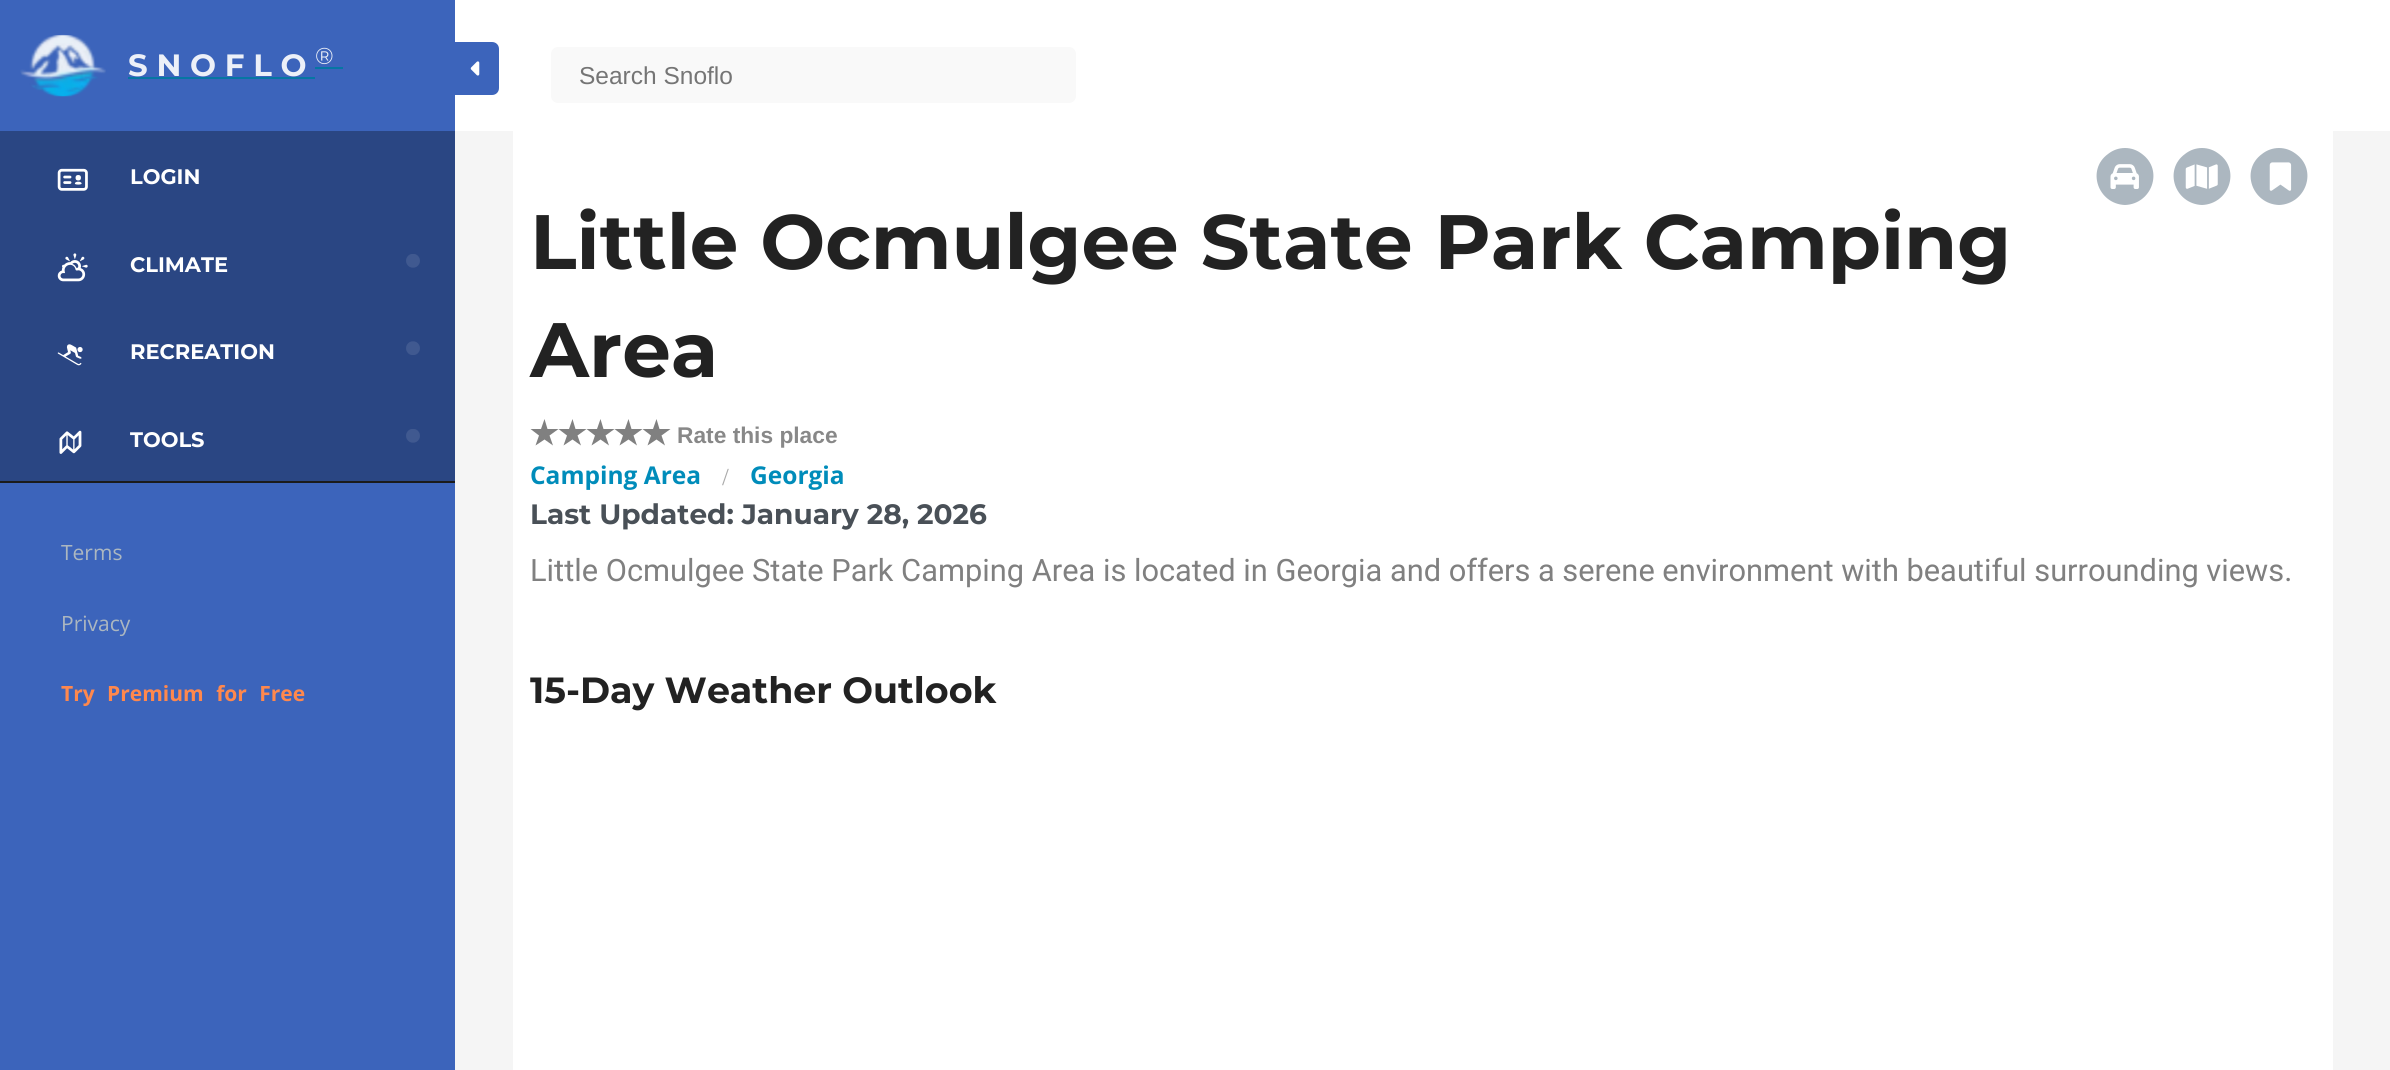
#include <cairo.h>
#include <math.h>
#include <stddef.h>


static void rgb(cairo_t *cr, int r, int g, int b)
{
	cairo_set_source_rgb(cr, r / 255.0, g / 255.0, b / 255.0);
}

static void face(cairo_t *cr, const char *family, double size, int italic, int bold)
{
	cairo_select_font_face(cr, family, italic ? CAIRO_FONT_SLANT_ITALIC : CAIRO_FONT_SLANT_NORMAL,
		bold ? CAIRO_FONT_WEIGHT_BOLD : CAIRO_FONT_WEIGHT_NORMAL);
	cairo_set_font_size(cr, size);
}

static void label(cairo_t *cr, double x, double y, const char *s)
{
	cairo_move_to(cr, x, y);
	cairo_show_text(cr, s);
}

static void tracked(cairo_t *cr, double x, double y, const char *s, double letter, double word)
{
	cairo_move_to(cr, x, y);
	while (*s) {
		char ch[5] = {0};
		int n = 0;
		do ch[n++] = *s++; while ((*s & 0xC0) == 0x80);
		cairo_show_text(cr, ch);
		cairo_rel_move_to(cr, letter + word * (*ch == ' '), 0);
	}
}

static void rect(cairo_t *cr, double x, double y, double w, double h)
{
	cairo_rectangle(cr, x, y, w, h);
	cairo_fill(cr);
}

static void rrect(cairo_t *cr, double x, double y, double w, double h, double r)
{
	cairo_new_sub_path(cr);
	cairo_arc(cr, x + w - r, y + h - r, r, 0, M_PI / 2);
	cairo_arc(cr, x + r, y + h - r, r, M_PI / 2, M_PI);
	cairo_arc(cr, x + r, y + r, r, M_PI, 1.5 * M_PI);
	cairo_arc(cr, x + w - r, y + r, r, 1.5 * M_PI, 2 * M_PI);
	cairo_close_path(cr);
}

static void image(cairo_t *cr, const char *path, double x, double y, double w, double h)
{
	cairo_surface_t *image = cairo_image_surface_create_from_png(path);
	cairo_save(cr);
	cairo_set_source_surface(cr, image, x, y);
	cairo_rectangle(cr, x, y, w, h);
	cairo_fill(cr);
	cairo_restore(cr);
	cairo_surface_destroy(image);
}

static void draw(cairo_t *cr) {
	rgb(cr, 245, 245, 245);
	cairo_paint(cr);
	rgb(cr, 60, 100, 187);
	rect(cr, 0, 483, 455, 587);
	rect(cr, 0, 0, 455, 131);
	image(cr, "image0.png", 20, 34, 86, 63);
	face(cr, "Montserrat", 30.8, 0, 1);
	rgb(cr, 236, 240, 248);
	tracked(cr, 128, 76, "SNOFLO", 8.75, 0);
	rgb(cr, 6, 118, 163);
	rect(cr, 128, 77, 187, 2);
	face(cr, "Montserrat", 23, 0, 0);
	rgb(cr, 236, 240, 248);
	tracked(cr, 315, 64, "®", 8.75, 0);
	rgb(cr, 6, 118, 163);
	rect(cr, 315, 67, 28, 2);
	rgb(cr, 27, 27, 27);
	rect(cr, 0, 481, 455, 2);
	rgb(cr, 42, 70, 131);
	rect(cr, 0, 131, 455, 350);
	image(cr, "image1.png", 57, 168, 31, 23);
	face(cr, "Montserrat", 21, 0, 1);
	rgb(cr, 255, 255, 255);
	label(cr, 130, 184, "LOGIN");
	image(cr, "image2.png", 57, 253, 31, 29);
	label(cr, 130, 272, "CLIMATE");
	image(cr, "image3.png", 406, 254, 14, 14);
	image(cr, "image4.png", 57, 344, 26, 22);
	label(cr, 130, 359, "RECREATION");
	image(cr, "image5.png", 406, 341, 14, 14);
	image(cr, "image6.png", 59, 430, 23, 24);
	label(cr, 130, 447, "TOOLS");
	image(cr, "image3.png", 406, 429, 14, 14);
	face(cr, "Open Sans", 21, 0, 0);
	rgb(cr, 172, 183, 192);
	label(cr, 61, 560, "Terms");
	label(cr, 61, 631, "Privacy");
	face(cr, "Open Sans", 21, 0, 1);
	rgb(cr, 255, 136, 77);
	tracked(cr, 61, 701, "Try Premium for Free", 0, 7);
	rgb(cr, 255, 255, 255);
	rect(cr, 455, 0, 1935, 131);
	rgb(cr, 60, 100, 187);
	cairo_new_path(cr);
	cairo_move_to(cr, 455, 42);
	cairo_line_to(cr, 492, 42);
	cairo_curve_to(cr, 496, 42, 499, 45, 499, 49);
	cairo_line_to(cr, 499, 88);
	cairo_curve_to(cr, 499, 92, 496, 95, 492, 95);
	cairo_line_to(cr, 455, 95);
	cairo_close_path(cr);
	cairo_fill(cr);
	image(cr, "image7.png", 470, 61, 10, 15);
	rgb(cr, 249, 249, 249);
	rrect(cr, 551, 47, 525, 56, 7);
	cairo_fill(cr);
	face(cr, "Liberation Sans", 24.5, 0, 0);
	rgb(cr, 117, 117, 117);
	label(cr, 579, 84, "Search Snoflo");
	rgb(cr, 255, 255, 255);
	rect(cr, 513, 131, 1820, 939);
	rgb(cr, 172, 183, 192);
	cairo_new_path(cr);
	cairo_move_to(cr, 2125, 205);
	cairo_curve_to(cr, 2152, 204, 2164, 170, 2142, 154);
	cairo_curve_to(cr, 2137, 150, 2131, 148, 2125, 148);
	cairo_curve_to(cr, 2119, 148, 2113, 150, 2108, 154);
	cairo_curve_to(cr, 2086, 170, 2098, 204, 2125, 205);
	cairo_close_path(cr);
	cairo_fill(cr);
	image(cr, "image8.png", 2110, 164, 29, 25);
	cairo_new_path(cr);
	cairo_move_to(cr, 2202, 205);
	cairo_curve_to(cr, 2229, 204, 2241, 170, 2219, 154);
	cairo_curve_to(cr, 2214, 150, 2208, 148, 2202, 148);
	cairo_curve_to(cr, 2196, 148, 2190, 150, 2185, 154);
	cairo_curve_to(cr, 2163, 170, 2175, 204, 2202, 205);
	cairo_close_path(cr);
	cairo_fill(cr);
	image(cr, "image9.png", 2185, 164, 33, 25);
	cairo_new_path(cr);
	cairo_move_to(cr, 2279, 205);
	cairo_curve_to(cr, 2306, 204, 2318, 170, 2296, 154);
	cairo_curve_to(cr, 2291, 150, 2285, 148, 2279, 148);
	cairo_curve_to(cr, 2273, 148, 2267, 150, 2262, 154);
	cairo_curve_to(cr, 2240, 170, 2252, 204, 2279, 205);
	cairo_close_path(cr);
	cairo_fill(cr);
	image(cr, "image10.png", 2269, 162, 23, 29);
	face(cr, "Montserrat", 77, 0, 1);
	rgb(cr, 34, 34, 34);
	label(cr, 530, 269, "Little Ocmulgee State Park Camping");
	label(cr, 530, 377, "Area");
	rgb(cr, 128, 128, 128);
	cairo_new_path(cr);
	cairo_move_to(cr, 544.5, 419);
	cairo_line_to(cr, 547.5, 429);
	cairo_line_to(cr, 558.5, 429);
	cairo_line_to(cr, 549.5, 435.5);
	cairo_line_to(cr, 553, 445.5);
	cairo_line_to(cr, 544.5, 439.5);
	cairo_line_to(cr, 535.5, 445.5);
	cairo_line_to(cr, 539, 435.5);
	cairo_line_to(cr, 530.5, 429);
	cairo_line_to(cr, 541, 429);
	cairo_close_path(cr);
	cairo_move_to(cr, 572.5, 419);
	cairo_line_to(cr, 575.5, 429);
	cairo_line_to(cr, 586.5, 429);
	cairo_line_to(cr, 577.5, 435.5);
	cairo_line_to(cr, 581, 445.5);
	cairo_line_to(cr, 572.5, 439.5);
	cairo_line_to(cr, 563.5, 445.5);
	cairo_line_to(cr, 567, 435.5);
	cairo_line_to(cr, 558.5, 429);
	cairo_line_to(cr, 569, 429);
	cairo_close_path(cr);
	cairo_fill(cr);
	cairo_new_path(cr);
	cairo_move_to(cr, 600.5, 419);
	cairo_line_to(cr, 603.5, 429);
	cairo_line_to(cr, 614.5, 429);
	cairo_line_to(cr, 605.5, 435.5);
	cairo_line_to(cr, 609, 445.5);
	cairo_line_to(cr, 600.5, 439.5);
	cairo_line_to(cr, 591.5, 445.5);
	cairo_line_to(cr, 595, 435.5);
	cairo_line_to(cr, 586.5, 429);
	cairo_line_to(cr, 597, 429);
	cairo_close_path(cr);
	cairo_move_to(cr, 628.5, 419);
	cairo_line_to(cr, 631.5, 429);
	cairo_line_to(cr, 642.5, 429);
	cairo_line_to(cr, 633.5, 435.5);
	cairo_line_to(cr, 637, 445.5);
	cairo_line_to(cr, 628.5, 439.5);
	cairo_line_to(cr, 619.5, 445.5);
	cairo_line_to(cr, 623, 435.5);
	cairo_line_to(cr, 614.5, 429);
	cairo_line_to(cr, 625, 429);
	cairo_close_path(cr);
	cairo_fill(cr);
	cairo_new_path(cr);
	cairo_move_to(cr, 656.5, 419);
	cairo_line_to(cr, 659.5, 429);
	cairo_line_to(cr, 670.5, 429);
	cairo_line_to(cr, 661.5, 435.5);
	cairo_line_to(cr, 665, 445.5);
	cairo_line_to(cr, 656.5, 439.5);
	cairo_line_to(cr, 647.5, 445.5);
	cairo_line_to(cr, 651, 435.5);
	cairo_line_to(cr, 642.5, 429);
	cairo_line_to(cr, 653, 429);
	cairo_close_path(cr);
	cairo_fill(cr);
	face(cr, "Liberation Sans", 22.75, 0, 1);
	rgb(cr, 136, 136, 136);
	label(cr, 677, 443, "Rate this place");
	face(cr, "Open Sans", 24.5, 0, 1);
	rgb(cr, 0, 140, 186);
	label(cr, 530, 484, "Camping Area");
	face(cr, "Liberation Serif", 24.5, 0, 0);
	rgb(cr, 170, 170, 170);
	label(cr, 722, 485, "/");
	face(cr, "Open Sans", 24.5, 0, 1);
	rgb(cr, 0, 140, 186);
	label(cr, 750, 484, "Georgia");
	face(cr, "Montserrat", 28, 0, 1);
	rgb(cr, 73, 80, 87);
	label(cr, 530, 524, "Last Updated: January 28, 2026");
	face(cr, "Roboto", 30.8, 0, 0);
	rgb(cr, 128, 128, 128);
	label(cr, 530, 581, "Little Ocmulgee State Park Camping Area is located in Georgia and offers a serene environment with beautiful surrounding views.");
	face(cr, "Montserrat", 36.4, 0, 1);
	rgb(cr, 34, 34, 34);
	label(cr, 530, 703, "15-Day Weather Outlook");
}

int main(void) {
	cairo_surface_t *surface = cairo_image_surface_create(CAIRO_FORMAT_RGB24, 2390, 1070);
	cairo_t *cr = cairo_create(surface);
	cairo_font_options_t *options = cairo_font_options_create();
	cairo_font_options_set_hint_metrics(options, CAIRO_HINT_METRICS_OFF);
	cairo_font_options_set_hint_style(options, CAIRO_HINT_STYLE_NONE);
	cairo_set_font_options(cr, options);
	cairo_set_miter_limit(cr, 4);
	draw(cr);
	cairo_surface_write_to_png(surface, "render.png");
	cairo_font_options_destroy(options);
	cairo_destroy(cr);
	cairo_surface_destroy(surface);
	return 0;
}
